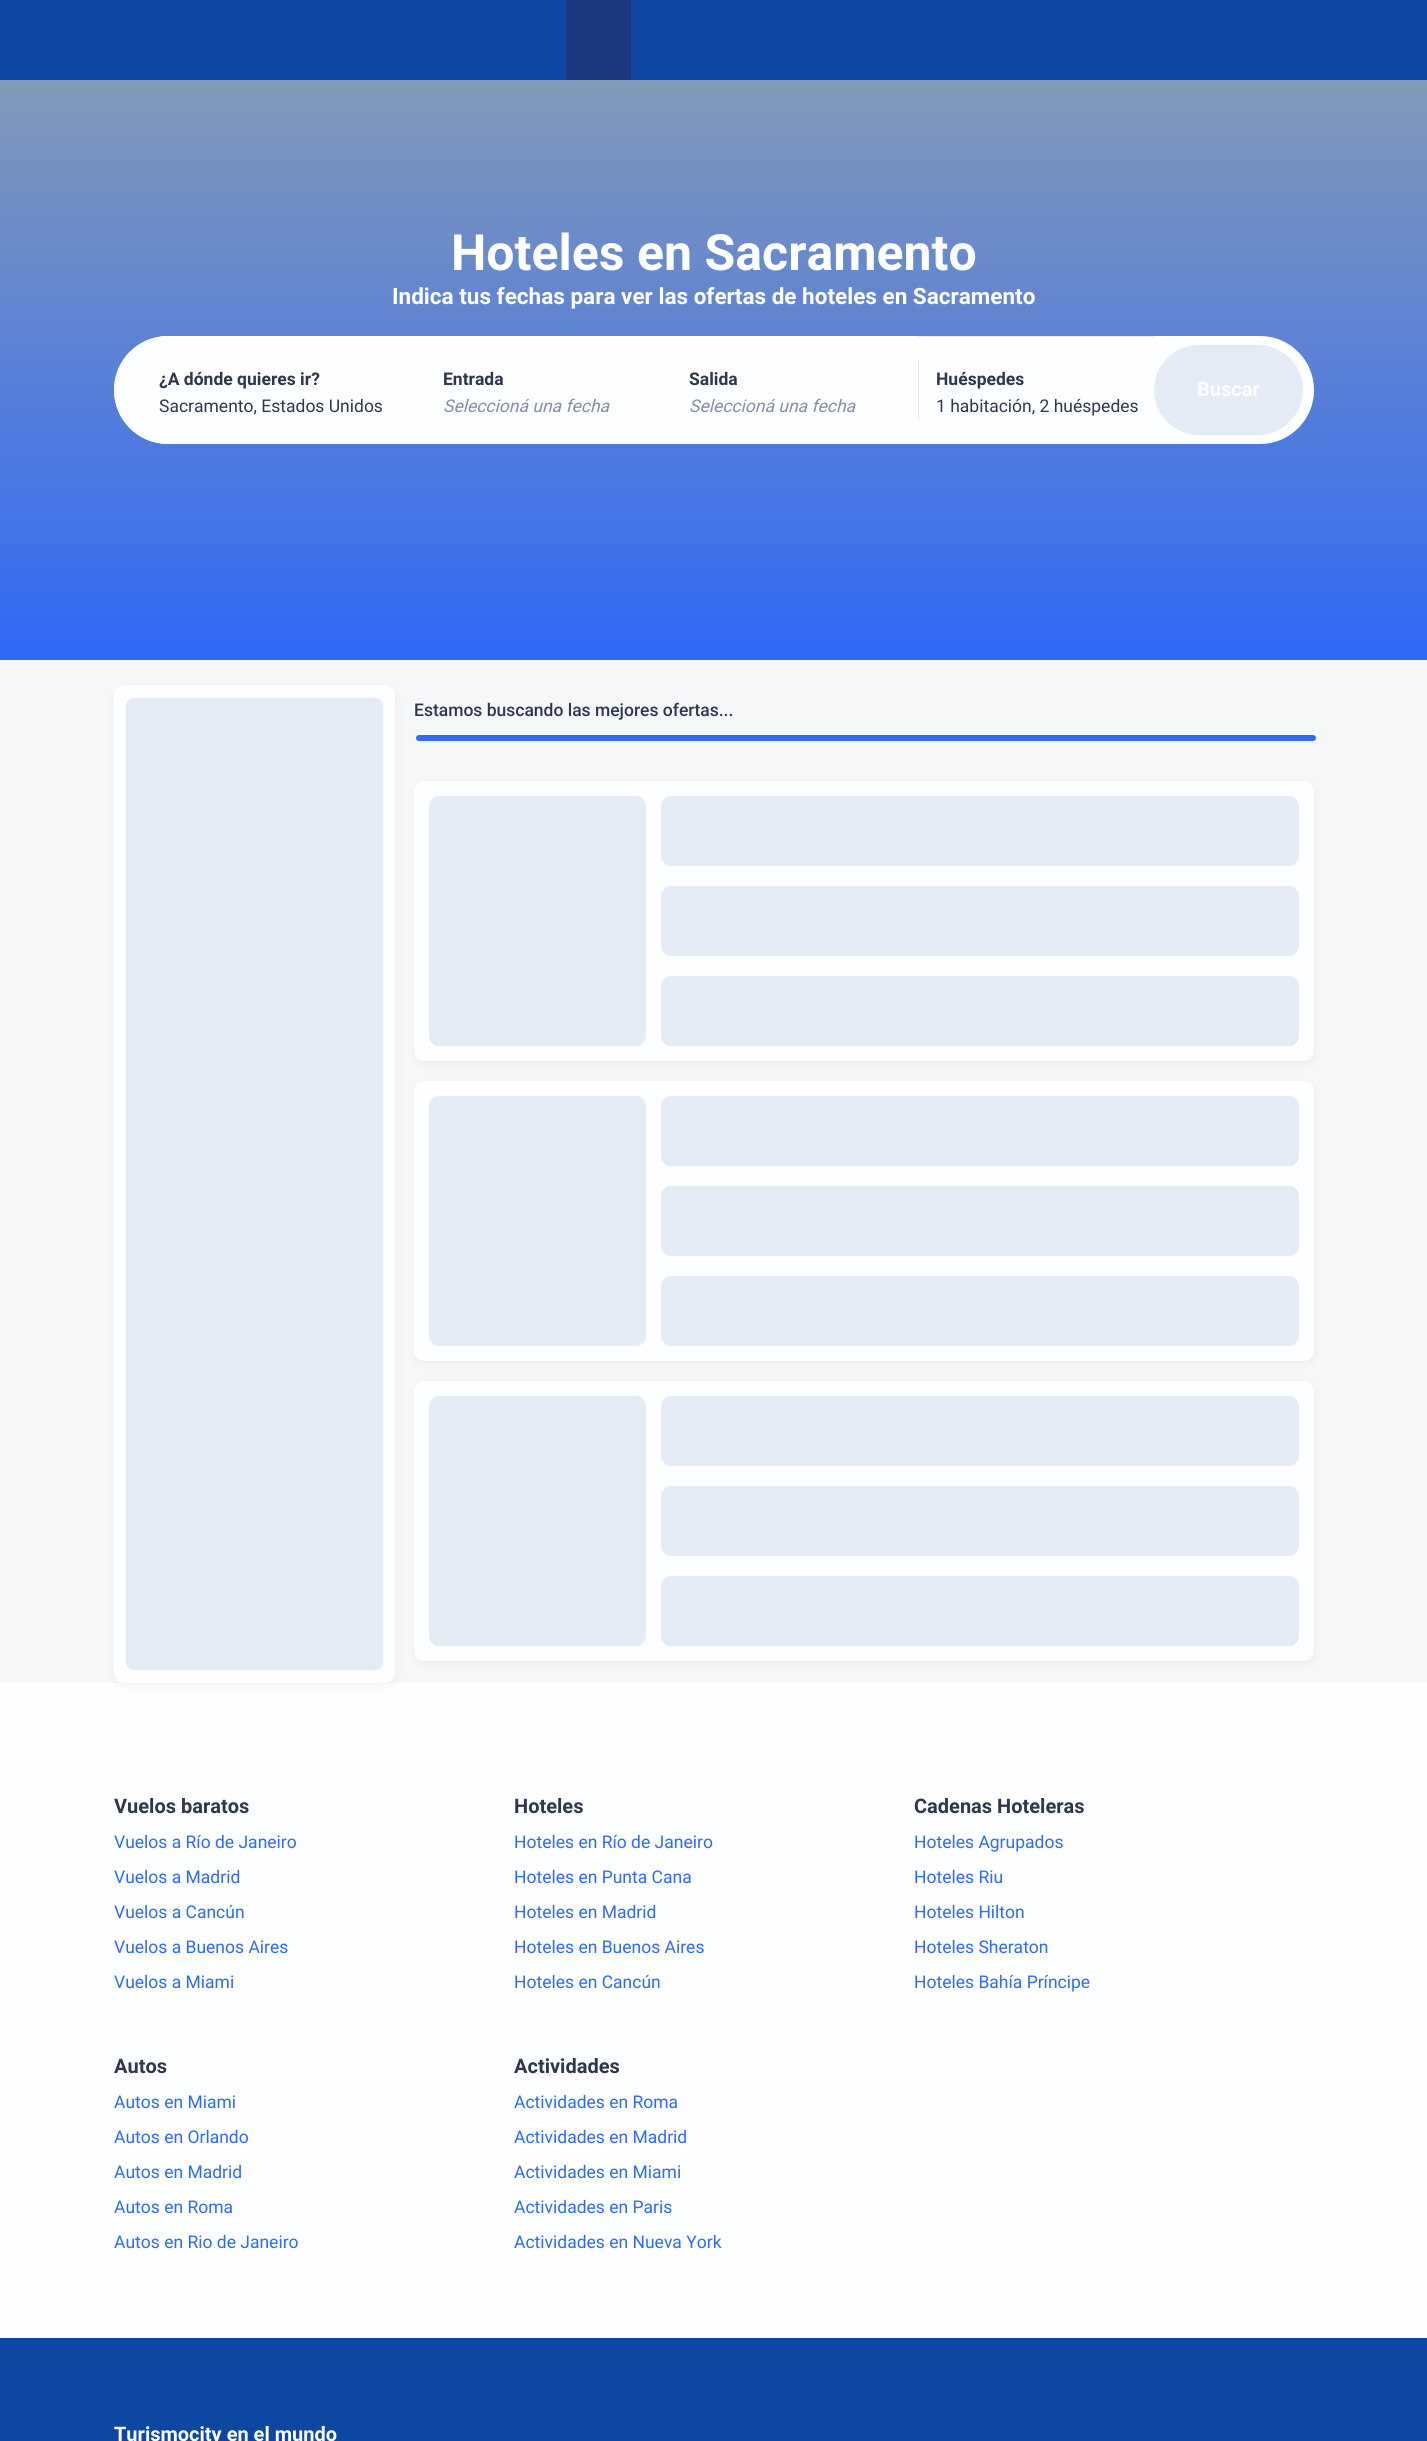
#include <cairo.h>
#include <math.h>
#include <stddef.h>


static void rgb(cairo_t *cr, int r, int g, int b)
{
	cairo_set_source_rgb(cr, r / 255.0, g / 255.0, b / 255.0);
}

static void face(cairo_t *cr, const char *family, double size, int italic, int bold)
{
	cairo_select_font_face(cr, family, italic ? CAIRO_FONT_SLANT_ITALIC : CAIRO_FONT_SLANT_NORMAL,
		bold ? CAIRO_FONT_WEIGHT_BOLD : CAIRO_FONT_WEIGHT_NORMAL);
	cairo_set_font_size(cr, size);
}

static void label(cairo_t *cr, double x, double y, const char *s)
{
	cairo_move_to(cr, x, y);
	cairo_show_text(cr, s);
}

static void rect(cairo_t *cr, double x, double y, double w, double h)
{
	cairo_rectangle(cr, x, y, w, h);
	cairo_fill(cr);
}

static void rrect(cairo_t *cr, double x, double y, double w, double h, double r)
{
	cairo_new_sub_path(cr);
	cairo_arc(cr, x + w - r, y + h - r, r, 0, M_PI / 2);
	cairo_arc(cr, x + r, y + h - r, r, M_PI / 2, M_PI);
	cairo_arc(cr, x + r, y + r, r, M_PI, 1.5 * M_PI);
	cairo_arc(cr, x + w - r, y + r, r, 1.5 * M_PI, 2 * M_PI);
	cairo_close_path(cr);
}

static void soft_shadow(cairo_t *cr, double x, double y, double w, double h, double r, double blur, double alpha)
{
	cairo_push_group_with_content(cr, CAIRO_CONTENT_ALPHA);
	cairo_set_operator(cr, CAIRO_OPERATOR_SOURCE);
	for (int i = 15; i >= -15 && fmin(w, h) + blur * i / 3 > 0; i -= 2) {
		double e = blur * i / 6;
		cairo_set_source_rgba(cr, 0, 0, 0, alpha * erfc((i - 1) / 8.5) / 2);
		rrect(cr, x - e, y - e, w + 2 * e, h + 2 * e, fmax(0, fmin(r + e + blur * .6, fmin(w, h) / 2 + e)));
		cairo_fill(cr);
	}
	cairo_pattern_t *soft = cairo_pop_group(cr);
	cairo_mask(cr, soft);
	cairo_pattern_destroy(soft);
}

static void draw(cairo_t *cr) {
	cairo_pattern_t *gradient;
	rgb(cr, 245, 247, 249);
	cairo_paint(cr);
	rgb(cr, 13, 71, 161);
	rect(cr, 0, 0, 1427, 80);
	rgb(cr, 26, 55, 128);
	rect(cr, 566, 0, 65, 80);
	gradient = cairo_pattern_create_linear(714, 80, 714, 660);
	cairo_pattern_add_color_stop_rgba(gradient, 0, 0.51, 0.596, 0.718, 1);
	cairo_pattern_add_color_stop_rgba(gradient, 1, 0.188, 0.412, 0.965, 1);
	cairo_set_source(cr, gradient);
	cairo_pattern_destroy(gradient);
	rect(cr, 0, 80, 1427, 580);
	face(cr, "Roboto", 50, 0, 1);
	rgb(cr, 252, 254, 255);
	label(cr, 451, 270, "Hoteles en Sacramento");
	face(cr, "Roboto", 22.5, 0, 1);
	label(cr, 392, 304, "Indica tus fechas para ver las ofertas de hoteles en Sacramento");
	rrect(cr, 114, 336, 1200, 108, 54);
	cairo_fill(cr);
	cairo_new_path(cr);
	cairo_move_to(cr, 168, 336);
	cairo_line_to(cr, 425, 336);
	cairo_line_to(cr, 425, 444);
	cairo_line_to(cr, 168, 444);
	cairo_curve_to(cr, 138, 444, 114, 420, 114, 390);
	cairo_curve_to(cr, 114, 360, 138, 336, 168, 336);
	cairo_close_path(cr);
	cairo_fill(cr);
	face(cr, "Roboto", 17.5, 0, 1);
	rgb(cr, 45, 56, 76);
	label(cr, 159, 385, "¿A dónde quieres ir?");
	face(cr, "Roboto", 17.5, 0, 0);
	label(cr, 159, 412, "Sacramento, Estados Unidos");
	face(cr, "Roboto", 17.5, 0, 1);
	label(cr, 443, 385, "Entrada");
	face(cr, "Roboto", 17.5, 1, 0);
	rgb(cr, 130, 144, 166);
	label(cr, 443, 412, "Seleccioná una fecha");
	face(cr, "Roboto", 17.5, 0, 1);
	rgb(cr, 45, 56, 76);
	label(cr, 689, 385, "Salida");
	face(cr, "Roboto", 17.5, 1, 0);
	rgb(cr, 130, 144, 166);
	label(cr, 689, 412, "Seleccioná una fecha");
	rgb(cr, 228, 235, 245);
	rect(cr, 918, 359, 1, 62);
	face(cr, "Roboto", 17.5, 0, 1);
	rgb(cr, 45, 56, 76);
	label(cr, 936, 385, "Huéspedes");
	rgb(cr, 233, 235, 236);
	rect(cr, 918, 336, 236, 1);
	face(cr, "Roboto", 17.5, 0, 0);
	rgb(cr, 45, 56, 76);
	label(cr, 936, 412, "1 habitación, 2 huéspedes");
	rgb(cr, 228, 235, 245);
	rrect(cr, 1154, 345, 149, 90, 45);
	cairo_fill(cr);
	face(cr, "Roboto", 20, 0, 1);
	rgb(cr, 252, 254, 255);
	label(cr, 1197, 396, "Buscar");
	rect(cr, 0, 1683, 1427, 655);
	rgb(cr, 0, 0, 0);
	soft_shadow(cr, 115, 688, 281, 997, 10, 4.5, 0.05);
	rgb(cr, 252, 254, 255);
	rrect(cr, 114, 685, 281, 998, 10);
	cairo_fill(cr);
	gradient = cairo_pattern_create_linear(-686, 1184, 939, 1184);
	cairo_pattern_add_color_stop_rgba(gradient, 0.1, 0.894, 0.922, 0.961, 1);
	cairo_pattern_add_color_stop_rgba(gradient, 0.25, 0.961, 0.969, 0.976, 1);
	cairo_pattern_add_color_stop_rgba(gradient, 0.4, 0.894, 0.922, 0.961, 1);
	cairo_set_source(cr, gradient);
	cairo_pattern_destroy(gradient);
	rrect(cr, 126, 698, 257, 972, 8);
	cairo_fill(cr);
	face(cr, "Roboto Medium", 17.5, 0, 0);
	rgb(cr, 45, 56, 76);
	label(cr, 414, 716, "Estamos buscando las mejores ofertas...");
	rgb(cr, 48, 105, 246);
	rrect(cr, 416, 735, 900, 6, 3);
	cairo_fill(cr);
	rgb(cr, 0, 0, 0);
	soft_shadow(cr, 415, 784, 900, 280, 10, 4.5, 0.05);
	rgb(cr, 252, 254, 255);
	rrect(cr, 414, 781, 900, 280, 10);
	cairo_fill(cr);
	gradient = cairo_pattern_create_linear(-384, 921, 1241, 921);
	cairo_pattern_add_color_stop_rgba(gradient, 0.1, 0.894, 0.922, 0.961, 1);
	cairo_pattern_add_color_stop_rgba(gradient, 0.25, 0.961, 0.969, 0.976, 1);
	cairo_pattern_add_color_stop_rgba(gradient, 0.4, 0.894, 0.922, 0.961, 1);
	cairo_set_source(cr, gradient);
	cairo_pattern_destroy(gradient);
	rrect(cr, 429, 796, 217, 250, 10);
	cairo_fill(cr);
	gradient = cairo_pattern_create_linear(-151, 831, 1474, 831);
	cairo_pattern_add_color_stop_rgba(gradient, 0.1, 0.894, 0.922, 0.961, 1);
	cairo_pattern_add_color_stop_rgba(gradient, 0.25, 0.961, 0.969, 0.976, 1);
	cairo_pattern_add_color_stop_rgba(gradient, 0.4, 0.894, 0.922, 0.961, 1);
	cairo_set_source(cr, gradient);
	cairo_pattern_destroy(gradient);
	rrect(cr, 661, 796, 638, 70, 10);
	cairo_fill(cr);
	gradient = cairo_pattern_create_linear(-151, 921, 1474, 921);
	cairo_pattern_add_color_stop_rgba(gradient, 0.1, 0.894, 0.922, 0.961, 1);
	cairo_pattern_add_color_stop_rgba(gradient, 0.25, 0.961, 0.969, 0.976, 1);
	cairo_pattern_add_color_stop_rgba(gradient, 0.4, 0.894, 0.922, 0.961, 1);
	cairo_set_source(cr, gradient);
	cairo_pattern_destroy(gradient);
	rrect(cr, 661, 886, 638, 70, 10);
	cairo_fill(cr);
	gradient = cairo_pattern_create_linear(-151, 1011, 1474, 1011);
	cairo_pattern_add_color_stop_rgba(gradient, 0.1, 0.894, 0.922, 0.961, 1);
	cairo_pattern_add_color_stop_rgba(gradient, 0.25, 0.961, 0.969, 0.976, 1);
	cairo_pattern_add_color_stop_rgba(gradient, 0.4, 0.894, 0.922, 0.961, 1);
	cairo_set_source(cr, gradient);
	cairo_pattern_destroy(gradient);
	rrect(cr, 661, 976, 638, 70, 10);
	cairo_fill(cr);
	rgb(cr, 0, 0, 0);
	soft_shadow(cr, 415, 1084, 900, 280, 10, 4.5, 0.05);
	rgb(cr, 252, 254, 255);
	rrect(cr, 414, 1081, 900, 280, 10);
	cairo_fill(cr);
	gradient = cairo_pattern_create_linear(-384, 1221, 1241, 1221);
	cairo_pattern_add_color_stop_rgba(gradient, 0.1, 0.894, 0.922, 0.961, 1);
	cairo_pattern_add_color_stop_rgba(gradient, 0.25, 0.961, 0.969, 0.976, 1);
	cairo_pattern_add_color_stop_rgba(gradient, 0.4, 0.894, 0.922, 0.961, 1);
	cairo_set_source(cr, gradient);
	cairo_pattern_destroy(gradient);
	rrect(cr, 429, 1096, 217, 250, 10);
	cairo_fill(cr);
	gradient = cairo_pattern_create_linear(-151, 1131, 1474, 1131);
	cairo_pattern_add_color_stop_rgba(gradient, 0.1, 0.894, 0.922, 0.961, 1);
	cairo_pattern_add_color_stop_rgba(gradient, 0.25, 0.961, 0.969, 0.976, 1);
	cairo_pattern_add_color_stop_rgba(gradient, 0.4, 0.894, 0.922, 0.961, 1);
	cairo_set_source(cr, gradient);
	cairo_pattern_destroy(gradient);
	rrect(cr, 661, 1096, 638, 70, 10);
	cairo_fill(cr);
	gradient = cairo_pattern_create_linear(-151, 1221, 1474, 1221);
	cairo_pattern_add_color_stop_rgba(gradient, 0.1, 0.894, 0.922, 0.961, 1);
	cairo_pattern_add_color_stop_rgba(gradient, 0.25, 0.961, 0.969, 0.976, 1);
	cairo_pattern_add_color_stop_rgba(gradient, 0.4, 0.894, 0.922, 0.961, 1);
	cairo_set_source(cr, gradient);
	cairo_pattern_destroy(gradient);
	rrect(cr, 661, 1186, 638, 70, 10);
	cairo_fill(cr);
	gradient = cairo_pattern_create_linear(-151, 1311, 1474, 1311);
	cairo_pattern_add_color_stop_rgba(gradient, 0.1, 0.894, 0.922, 0.961, 1);
	cairo_pattern_add_color_stop_rgba(gradient, 0.25, 0.961, 0.969, 0.976, 1);
	cairo_pattern_add_color_stop_rgba(gradient, 0.4, 0.894, 0.922, 0.961, 1);
	cairo_set_source(cr, gradient);
	cairo_pattern_destroy(gradient);
	rrect(cr, 661, 1276, 638, 70, 10);
	cairo_fill(cr);
	rgb(cr, 0, 0, 0);
	soft_shadow(cr, 415, 1384, 900, 280, 10, 4.5, 0.05);
	rgb(cr, 252, 254, 255);
	rrect(cr, 414, 1381, 900, 280, 10);
	cairo_fill(cr);
	gradient = cairo_pattern_create_linear(-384, 1521, 1241, 1521);
	cairo_pattern_add_color_stop_rgba(gradient, 0.1, 0.894, 0.922, 0.961, 1);
	cairo_pattern_add_color_stop_rgba(gradient, 0.25, 0.961, 0.969, 0.976, 1);
	cairo_pattern_add_color_stop_rgba(gradient, 0.4, 0.894, 0.922, 0.961, 1);
	cairo_set_source(cr, gradient);
	cairo_pattern_destroy(gradient);
	rrect(cr, 429, 1396, 217, 250, 10);
	cairo_fill(cr);
	gradient = cairo_pattern_create_linear(-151, 1431, 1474, 1431);
	cairo_pattern_add_color_stop_rgba(gradient, 0.1, 0.894, 0.922, 0.961, 1);
	cairo_pattern_add_color_stop_rgba(gradient, 0.25, 0.961, 0.969, 0.976, 1);
	cairo_pattern_add_color_stop_rgba(gradient, 0.4, 0.894, 0.922, 0.961, 1);
	cairo_set_source(cr, gradient);
	cairo_pattern_destroy(gradient);
	rrect(cr, 661, 1396, 638, 70, 10);
	cairo_fill(cr);
	gradient = cairo_pattern_create_linear(-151, 1521, 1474, 1521);
	cairo_pattern_add_color_stop_rgba(gradient, 0.1, 0.894, 0.922, 0.961, 1);
	cairo_pattern_add_color_stop_rgba(gradient, 0.25, 0.961, 0.969, 0.976, 1);
	cairo_pattern_add_color_stop_rgba(gradient, 0.4, 0.894, 0.922, 0.961, 1);
	cairo_set_source(cr, gradient);
	cairo_pattern_destroy(gradient);
	rrect(cr, 661, 1486, 638, 70, 10);
	cairo_fill(cr);
	gradient = cairo_pattern_create_linear(-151, 1611, 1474, 1611);
	cairo_pattern_add_color_stop_rgba(gradient, 0.1, 0.894, 0.922, 0.961, 1);
	cairo_pattern_add_color_stop_rgba(gradient, 0.25, 0.961, 0.969, 0.976, 1);
	cairo_pattern_add_color_stop_rgba(gradient, 0.4, 0.894, 0.922, 0.961, 1);
	cairo_set_source(cr, gradient);
	cairo_pattern_destroy(gradient);
	rrect(cr, 661, 1576, 638, 70, 10);
	cairo_fill(cr);
	face(cr, "Roboto", 20, 0, 1);
	rgb(cr, 45, 56, 76);
	label(cr, 114, 1813, "Vuelos baratos");
	face(cr, "Roboto", 17.5, 0, 0);
	rgb(cr, 48, 105, 246);
	label(cr, 114, 1848, "Vuelos a Río de Janeiro");
	label(cr, 114, 1883, "Vuelos a Madrid");
	label(cr, 114, 1918, "Vuelos a Cancún");
	label(cr, 114, 1953, "Vuelos a Buenos Aires");
	label(cr, 114, 1988, "Vuelos a Miami");
	face(cr, "Roboto", 20, 0, 1);
	rgb(cr, 45, 56, 76);
	label(cr, 514, 1813, "Hoteles");
	face(cr, "Roboto", 17.5, 0, 0);
	rgb(cr, 48, 105, 246);
	label(cr, 514, 1848, "Hoteles en Río de Janeiro");
	label(cr, 514, 1883, "Hoteles en Punta Cana");
	label(cr, 514, 1918, "Hoteles en Madrid");
	label(cr, 514, 1953, "Hoteles en Buenos Aires");
	label(cr, 514, 1988, "Hoteles en Cancún");
	face(cr, "Roboto", 20, 0, 1);
	rgb(cr, 45, 56, 76);
	label(cr, 914, 1813, "Cadenas Hoteleras");
	face(cr, "Roboto", 17.5, 0, 0);
	rgb(cr, 48, 105, 246);
	label(cr, 914, 1848, "Hoteles Agrupados");
	label(cr, 914, 1883, "Hoteles Riu");
	label(cr, 914, 1918, "Hoteles Hilton");
	label(cr, 914, 1953, "Hoteles Sheraton");
	label(cr, 914, 1988, "Hoteles Bahía Príncipe");
	face(cr, "Roboto", 20, 0, 1);
	rgb(cr, 45, 56, 76);
	label(cr, 114, 2073, "Autos");
	face(cr, "Roboto", 17.5, 0, 0);
	rgb(cr, 48, 105, 246);
	label(cr, 114, 2108, "Autos en Miami");
	label(cr, 114, 2143, "Autos en Orlando");
	label(cr, 114, 2178, "Autos en Madrid");
	label(cr, 114, 2213, "Autos en Roma");
	label(cr, 114, 2248, "Autos en Rio de Janeiro");
	face(cr, "Roboto", 20, 0, 1);
	rgb(cr, 45, 56, 76);
	label(cr, 514, 2073, "Actividades");
	face(cr, "Roboto", 17.5, 0, 0);
	rgb(cr, 48, 105, 246);
	label(cr, 514, 2108, "Actividades en Roma");
	label(cr, 514, 2143, "Actividades en Madrid");
	label(cr, 514, 2178, "Actividades en Miami");
	label(cr, 514, 2213, "Actividades en Paris");
	label(cr, 514, 2248, "Actividades en Nueva York");
	rgb(cr, 13, 71, 161);
	rect(cr, 0, 2338, 1427, 103);
	face(cr, "Roboto", 20, 0, 1);
	rgb(cr, 252, 254, 255);
	label(cr, 114, 2441, "Turismocity en el mundo");
}

int main(void) {
	cairo_surface_t *surface = cairo_image_surface_create(CAIRO_FORMAT_RGB24, 1427, 2441);
	cairo_t *cr = cairo_create(surface);
	cairo_font_options_t *options = cairo_font_options_create();
	cairo_font_options_set_hint_metrics(options, CAIRO_HINT_METRICS_OFF);
	cairo_font_options_set_hint_style(options, CAIRO_HINT_STYLE_NONE);
	cairo_set_font_options(cr, options);
	cairo_set_miter_limit(cr, 4);
	draw(cr);
	cairo_surface_write_to_png(surface, "render.png");
	cairo_font_options_destroy(options);
	cairo_destroy(cr);
	cairo_surface_destroy(surface);
	return 0;
}
